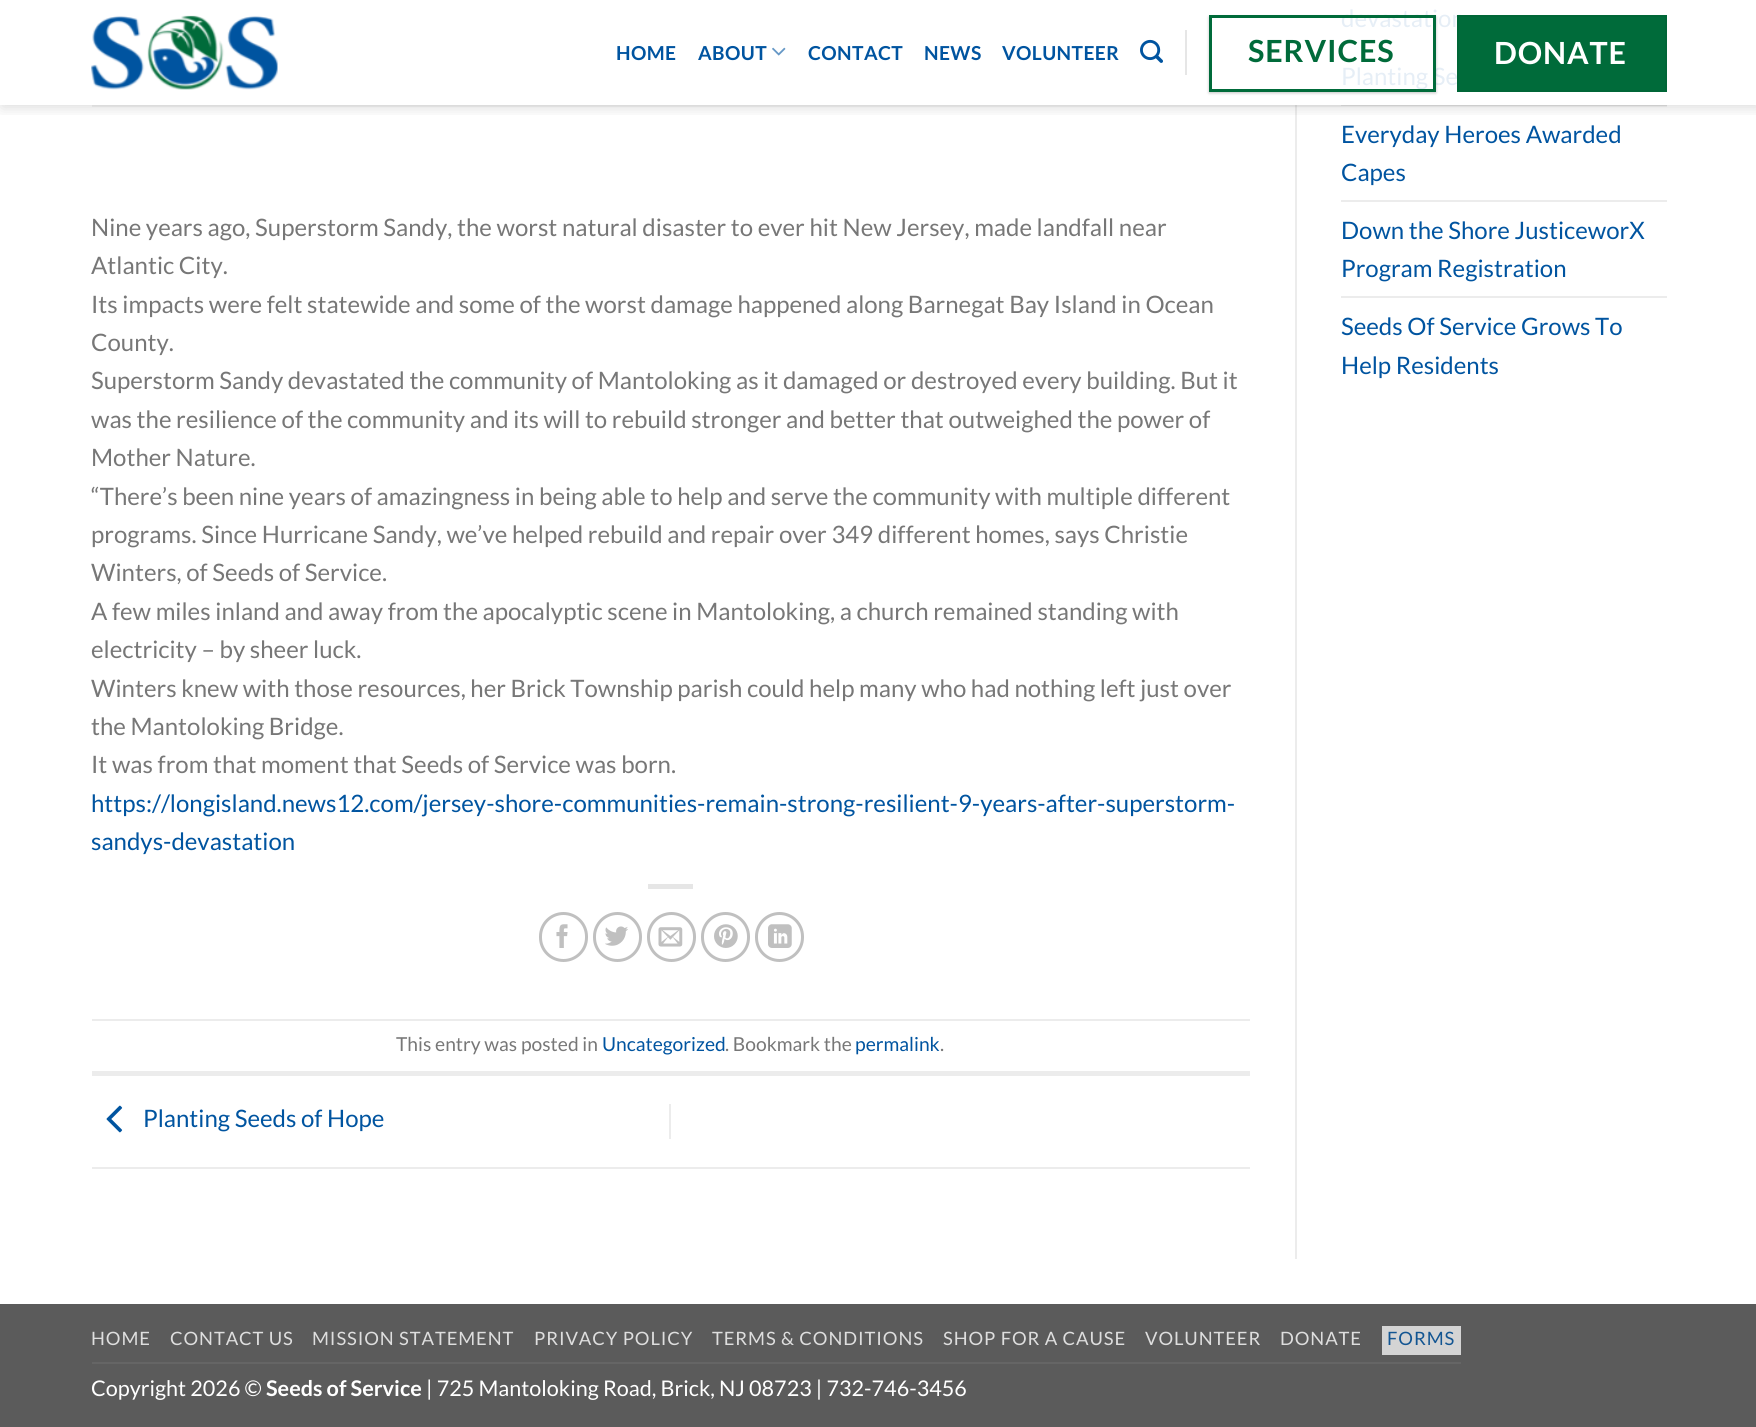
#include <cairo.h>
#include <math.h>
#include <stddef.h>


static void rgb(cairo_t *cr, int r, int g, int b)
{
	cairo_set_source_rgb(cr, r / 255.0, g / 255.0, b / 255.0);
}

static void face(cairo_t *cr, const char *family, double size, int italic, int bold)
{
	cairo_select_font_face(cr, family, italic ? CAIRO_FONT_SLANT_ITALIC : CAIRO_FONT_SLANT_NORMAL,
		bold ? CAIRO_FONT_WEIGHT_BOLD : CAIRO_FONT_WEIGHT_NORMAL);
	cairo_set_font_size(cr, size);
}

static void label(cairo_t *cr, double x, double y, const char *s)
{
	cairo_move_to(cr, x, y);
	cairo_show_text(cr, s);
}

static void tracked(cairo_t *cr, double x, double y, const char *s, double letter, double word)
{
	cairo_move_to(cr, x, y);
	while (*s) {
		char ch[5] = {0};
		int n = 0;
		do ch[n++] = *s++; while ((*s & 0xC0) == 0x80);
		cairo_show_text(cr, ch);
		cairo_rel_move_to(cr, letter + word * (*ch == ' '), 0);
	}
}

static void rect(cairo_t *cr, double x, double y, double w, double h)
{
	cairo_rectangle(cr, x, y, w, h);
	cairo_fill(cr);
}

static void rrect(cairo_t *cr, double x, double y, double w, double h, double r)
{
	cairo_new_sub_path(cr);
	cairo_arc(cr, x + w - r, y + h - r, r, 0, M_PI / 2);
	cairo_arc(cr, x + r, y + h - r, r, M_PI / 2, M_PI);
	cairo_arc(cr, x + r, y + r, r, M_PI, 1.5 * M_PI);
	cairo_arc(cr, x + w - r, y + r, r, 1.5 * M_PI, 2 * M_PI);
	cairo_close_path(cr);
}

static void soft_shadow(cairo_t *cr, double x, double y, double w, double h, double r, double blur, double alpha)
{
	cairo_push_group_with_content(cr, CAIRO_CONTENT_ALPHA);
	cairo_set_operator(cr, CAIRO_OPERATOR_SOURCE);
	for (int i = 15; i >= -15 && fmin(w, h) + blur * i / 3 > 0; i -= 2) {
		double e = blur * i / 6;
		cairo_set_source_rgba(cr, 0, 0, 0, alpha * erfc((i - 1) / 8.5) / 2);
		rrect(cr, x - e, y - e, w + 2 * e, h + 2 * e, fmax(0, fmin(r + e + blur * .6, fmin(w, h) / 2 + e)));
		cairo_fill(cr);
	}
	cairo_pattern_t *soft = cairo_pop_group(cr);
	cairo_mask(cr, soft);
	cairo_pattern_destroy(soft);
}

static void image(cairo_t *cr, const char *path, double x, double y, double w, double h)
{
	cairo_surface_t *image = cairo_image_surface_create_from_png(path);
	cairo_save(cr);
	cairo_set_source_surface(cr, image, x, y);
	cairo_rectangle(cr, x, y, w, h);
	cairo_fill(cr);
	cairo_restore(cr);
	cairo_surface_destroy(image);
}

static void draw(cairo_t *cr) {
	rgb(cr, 255, 255, 255);
	cairo_paint(cr);
	face(cr, "Lato", 24, 0, 0);
	rgb(cr, 119, 119, 119);
	label(cr, 91, 236, "Nine years ago, Superstorm Sandy, the worst natural disaster to ever hit New Jersey, made landfall near");
	label(cr, 91, 274, "Atlantic City.");
	label(cr, 91, 313, "Its impacts were felt statewide and some of the worst damage happened along Barnegat Bay Island in Ocean");
	label(cr, 91, 351, "County.");
	label(cr, 91, 389, "Superstorm Sandy devastated the community of Mantoloking as it damaged or destroyed every building. But it");
	label(cr, 91, 428, "was the resilience of the community and its will to rebuild stronger and better that outweighed the power of");
	label(cr, 91, 466, "Mother Nature.");
	label(cr, 91, 505, "“There’s been nine years of amazingness in being able to help and serve the community with multiple different");
	label(cr, 91, 543, "programs. Since Hurricane Sandy, we’ve helped rebuild and repair over 349 different homes, says Christie");
	label(cr, 91, 581, "Winters, of Seeds of Service.");
	label(cr, 91, 620, "A few miles inland and away from the apocalyptic scene in Mantoloking, a church remained standing with");
	label(cr, 91, 658, "electricity – by sheer luck.");
	label(cr, 91, 697, "Winters knew with those resources, her Brick Township parish could help many who had nothing left just over");
	label(cr, 91, 735, "the Mantoloking Bridge.");
	label(cr, 91, 773, "It was from that moment that Seeds of Service was born.");
	rgb(cr, 0, 84, 160);
	label(cr, 91, 812, "https://longisland.news12.com/jersey-shore-communities-remain-strong-resilient-9-years-after-superstorm-");
	label(cr, 91, 850, "sandys-devastation");
	rgb(cr, 230, 230, 230);
	rect(cr, 648, 884, 45, 5);
	rrect(cr, 540.5, 913.5, 46, 47, 23);
	rgb(cr, 192, 192, 192);
	cairo_set_line_width(cr, 3);
	cairo_stroke(cr);
	image(cr, "image0.png", 556, 924, 12, 24);
	rrect(cr, 594.5, 913.5, 46, 47, 23);
	cairo_stroke(cr);
	image(cr, "image1.png", 605, 926, 23, 20);
	rrect(cr, 648.5, 913.5, 46, 47, 23);
	cairo_stroke(cr);
	image(cr, "image2.png", 658, 927, 25, 20);
	rrect(cr, 702.5, 913.5, 46, 47, 23);
	cairo_stroke(cr);
	image(cr, "image3.png", 714, 924, 24, 24);
	rrect(cr, 756.5, 913.5, 46, 47, 23);
	cairo_stroke(cr);
	image(cr, "image4.png", 768, 924, 24, 24);
	rgb(cr, 236, 236, 236);
	rect(cr, 92, 1019, 1158, 2);
	rect(cr, 92, 1071, 1158, 5);
	face(cr, "Lato", 19.25, 0, 0);
	rgb(cr, 119, 119, 119);
	label(cr, 396, 1051, "This entry was posted in");
	rgb(cr, 0, 84, 160);
	label(cr, 602, 1051, "Uncategorized");
	rgb(cr, 119, 119, 119);
	label(cr, 725, 1051, ". Bookmark the");
	rgb(cr, 0, 84, 160);
	label(cr, 855, 1051, "permalink");
	rgb(cr, 119, 119, 119);
	label(cr, 940, 1051, ".");
	rgb(cr, 236, 236, 236);
	rect(cr, 92, 1167, 1158, 2);
	image(cr, "image5.png", 106, 1105, 17, 28);
	face(cr, "Lato", 24, 0, 0);
	rgb(cr, 0, 84, 160);
	label(cr, 143, 1127, "Planting Seeds of Hope");
	rgb(cr, 236, 236, 236);
	rect(cr, 669, 1104, 2, 35);
	rect(cr, 1295, 105, 2, 1154);
	rgb(cr, 230, 238, 246);
	label(cr, 1341, 27, "devastation");
	label(cr, 1341, 85, "Planting Se");
	rgb(cr, 236, 236, 236);
	rect(cr, 1341, 105, 326, 1);
	rgb(cr, 0, 84, 160);
	label(cr, 1341, 143, "Everyday Heroes Awarded");
	label(cr, 1341, 181, "Capes");
	rgb(cr, 236, 236, 236);
	rect(cr, 1341, 200, 326, 2);
	rgb(cr, 0, 84, 160);
	label(cr, 1341, 239, "Down the Shore JusticeworX");
	label(cr, 1341, 277, "Program Registration");
	rgb(cr, 236, 236, 236);
	rect(cr, 1341, 296, 326, 2);
	rgb(cr, 0, 84, 160);
	label(cr, 1341, 335, "Seeds Of Service Grows To");
	label(cr, 1341, 374, "Help Residents");
	cairo_save(cr);
	cairo_rectangle(cr, 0, 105, 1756, 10);
	cairo_clip(cr);
	rgb(cr, 0, 0, 0);
	soft_shadow(cr, 2, 2, 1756, 105, 0, 7.5, 0.15);
	cairo_restore(cr);
	image(cr, "image6.png", 91, 15, 187, 75);
	face(cr, "Lato", 19.25, 0, 1);
	tracked(cr, 616, 60, "HOME", 0.4, 0);
	tracked(cr, 698, 60, "ABOUT", 0.4, 0);
	image(cr, "image7.png", 772, 47, 14, 9);
	tracked(cr, 808, 60, "CONTACT", 0.4, 0);
	tracked(cr, 924, 60, "NEWS", 0.4, 0);
	tracked(cr, 1002, 60, "VOLUNTEER", 0.4, 0);
	image(cr, "image8.png", 1140, 39, 23, 24);
	rgb(cr, 230, 230, 230);
	rect(cr, 1185, 30, 2, 45);
	cairo_save(cr);
	cairo_set_fill_rule(cr, CAIRO_FILL_RULE_EVEN_ODD);
	cairo_new_path(cr);
	cairo_move_to(cr, 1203, 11);
	cairo_line_to(cr, 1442, 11);
	cairo_line_to(cr, 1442, 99);
	cairo_line_to(cr, 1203, 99);
	cairo_close_path(cr);
	cairo_move_to(cr, 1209, 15);
	cairo_line_to(cr, 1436, 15);
	cairo_line_to(cr, 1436, 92);
	cairo_line_to(cr, 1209, 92);
	cairo_close_path(cr);
	cairo_clip(cr);
	rgb(cr, 0, 0, 0);
	soft_shadow(cr, 1209, 17, 227, 76, 0, 1.5, 0.24);
	cairo_restore(cr);
	cairo_rectangle(cr, 1210.5, 16.5, 224, 74);
	rgb(cr, 0, 107, 58);
	cairo_stroke(cr);
	face(cr, "Lato", 30.5, 0, 1);
	tracked(cr, 1248, 62, "SERVICES", 0.9, 0);
	cairo_rectangle(cr, 1458, 16, 208, 75);
	cairo_fill_preserve(cr);
	rgb(cr, 0, 102, 55);
	cairo_set_line_width(cr, 2);
	cairo_stroke(cr);
	rgb(cr, 255, 255, 255);
	tracked(cr, 1494, 64, "DONATE", 0.9, 0);
	cairo_set_source_rgba(cr, 0.467, 0.467, 0.467, 0.1);
	rect(cr, 92, 105, 1575, 2);
	rgb(cr, 91, 91, 91);
	rect(cr, 0, 1304, 1756, 123);
	rgb(cr, 101, 101, 101);
	rect(cr, 92, 1362, 1369, 2);
	face(cr, "Lato", 18.4, 0, 0);
	rgb(cr, 222, 222, 222);
	tracked(cr, 91, 1345, "HOME", 0.9, 0);
	tracked(cr, 170, 1345, "CONTACT US", 0.9, 0);
	tracked(cr, 312, 1345, "MISSION STATEMENT", 0.9, 0);
	tracked(cr, 534, 1345, "PRIVACY POLICY", 0.9, 0);
	tracked(cr, 712, 1345, "TERMS & CONDITIONS", 0.9, 0);
	tracked(cr, 943, 1345, "SHOP FOR A CAUSE", 0.9, 0);
	tracked(cr, 1145, 1345, "VOLUNTEER", 0.9, 0);
	tracked(cr, 1280, 1345, "DONATE", 0.9, 0);
	rgb(cr, 212, 212, 212);
	rect(cr, 1382, 1326, 79, 29);
	rgb(cr, 18, 85, 146);
	tracked(cr, 1387, 1345, "FORMS", 0.9, 0);
	face(cr, "Lato", 21.6, 0, 0);
	rgb(cr, 255, 255, 255);
	label(cr, 91, 1396, "Copyright 2026 ©");
	face(cr, "Lato", 21.6, 0, 1);
	label(cr, 266, 1396, "Seeds of Service");
	face(cr, "Lato", 21.6, 0, 0);
	label(cr, 426, 1396, "| 725 Mantoloking Road, Brick, NJ 08723 | 732-746-3456");
}

int main(void) {
	cairo_surface_t *surface = cairo_image_surface_create(CAIRO_FORMAT_RGB24, 1756, 1427);
	cairo_t *cr = cairo_create(surface);
	cairo_font_options_t *options = cairo_font_options_create();
	cairo_font_options_set_hint_metrics(options, CAIRO_HINT_METRICS_OFF);
	cairo_font_options_set_hint_style(options, CAIRO_HINT_STYLE_NONE);
	cairo_set_font_options(cr, options);
	cairo_set_miter_limit(cr, 4);
	draw(cr);
	cairo_surface_write_to_png(surface, "render.png");
	cairo_font_options_destroy(options);
	cairo_destroy(cr);
	cairo_surface_destroy(surface);
	return 0;
}
